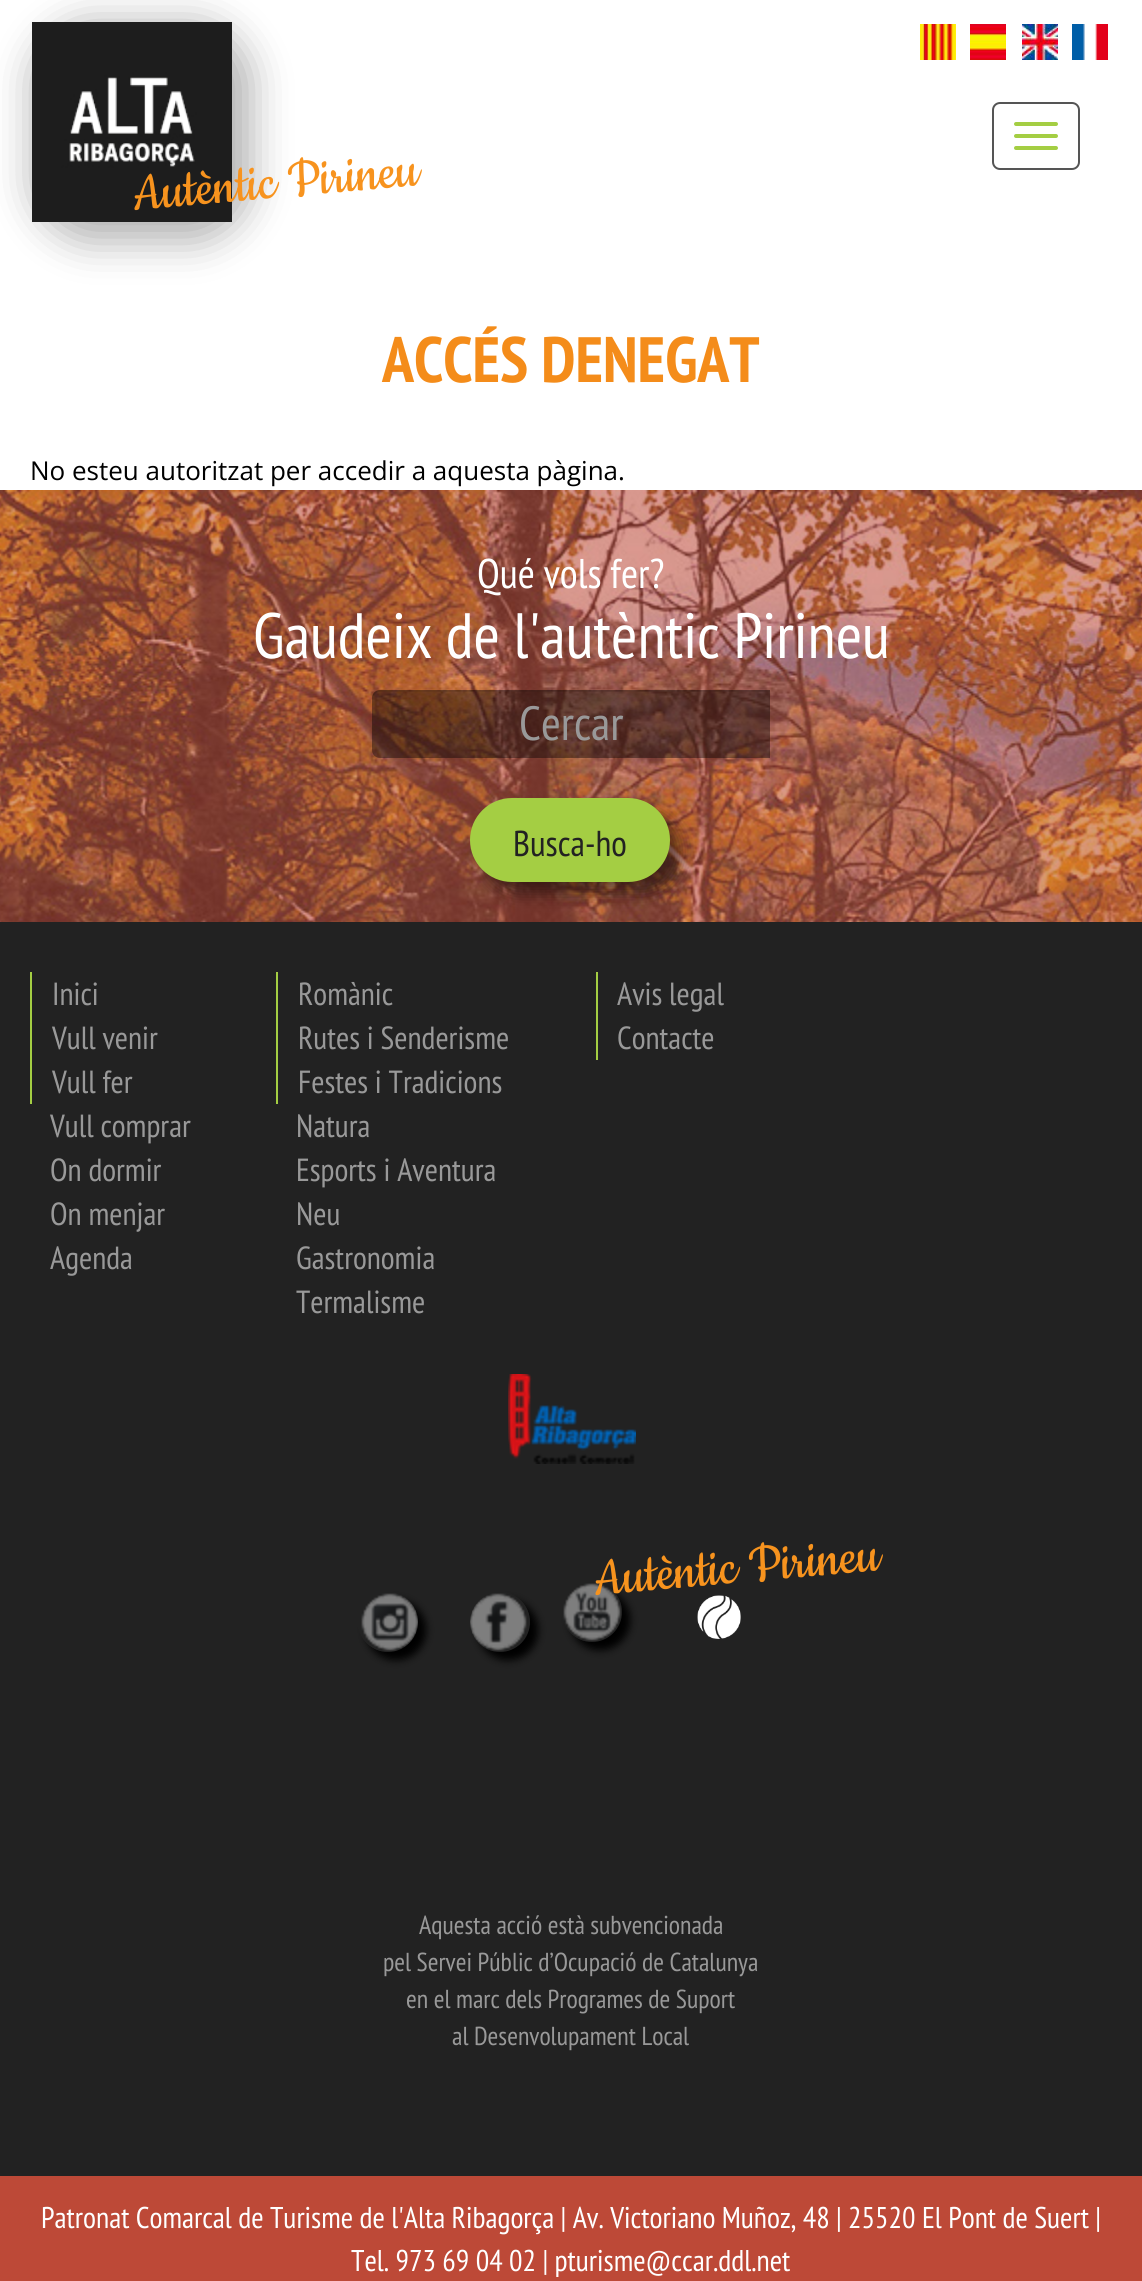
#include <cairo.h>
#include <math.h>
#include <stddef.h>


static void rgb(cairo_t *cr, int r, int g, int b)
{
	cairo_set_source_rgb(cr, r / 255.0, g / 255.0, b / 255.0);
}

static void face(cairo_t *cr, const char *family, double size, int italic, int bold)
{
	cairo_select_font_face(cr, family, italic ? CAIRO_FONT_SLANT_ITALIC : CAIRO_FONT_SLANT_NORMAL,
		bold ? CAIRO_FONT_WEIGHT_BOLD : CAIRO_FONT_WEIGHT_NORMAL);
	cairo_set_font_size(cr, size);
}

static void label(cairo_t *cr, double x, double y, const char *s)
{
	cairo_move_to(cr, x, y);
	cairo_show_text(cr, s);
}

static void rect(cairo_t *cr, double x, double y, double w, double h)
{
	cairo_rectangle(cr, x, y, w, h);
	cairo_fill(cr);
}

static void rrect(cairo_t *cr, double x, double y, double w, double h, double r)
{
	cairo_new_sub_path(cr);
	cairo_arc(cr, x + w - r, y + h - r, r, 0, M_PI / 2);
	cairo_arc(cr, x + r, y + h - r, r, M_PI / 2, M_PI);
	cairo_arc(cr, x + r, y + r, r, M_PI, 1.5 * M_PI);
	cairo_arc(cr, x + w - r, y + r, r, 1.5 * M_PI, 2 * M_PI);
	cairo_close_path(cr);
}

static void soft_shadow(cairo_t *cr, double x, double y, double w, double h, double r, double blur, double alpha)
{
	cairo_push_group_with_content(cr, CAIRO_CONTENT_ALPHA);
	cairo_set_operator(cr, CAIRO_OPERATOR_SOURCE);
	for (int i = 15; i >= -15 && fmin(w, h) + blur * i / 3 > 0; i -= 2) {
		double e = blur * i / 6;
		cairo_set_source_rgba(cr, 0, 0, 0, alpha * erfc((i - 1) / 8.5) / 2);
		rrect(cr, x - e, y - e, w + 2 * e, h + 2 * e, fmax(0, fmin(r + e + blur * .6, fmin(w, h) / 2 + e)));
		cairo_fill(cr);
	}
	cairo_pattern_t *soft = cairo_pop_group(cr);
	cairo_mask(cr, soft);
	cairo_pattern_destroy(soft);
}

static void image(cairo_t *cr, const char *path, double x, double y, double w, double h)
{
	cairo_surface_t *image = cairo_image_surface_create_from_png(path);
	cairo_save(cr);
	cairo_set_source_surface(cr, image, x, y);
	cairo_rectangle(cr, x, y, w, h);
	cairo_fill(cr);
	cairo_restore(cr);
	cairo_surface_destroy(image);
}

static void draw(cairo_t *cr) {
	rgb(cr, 255, 255, 255);
	cairo_paint(cr);
	image(cr, "image0.png", 920, 24, 36, 36);
	image(cr, "image1.png", 970, 24, 36, 36);
	image(cr, "image2.png", 1022, 24, 36, 36);
	image(cr, "image3.png", 1072, 24, 36, 36);
	rrect(cr, 993, 103, 86, 66, 7);
	rgb(cr, 85, 85, 85);
	cairo_stroke(cr);
	rgb(cr, 164, 206, 67);
	rrect(cr, 1014, 122, 44, 4, 2);
	cairo_fill(cr);
	rrect(cr, 1014, 134, 44, 4, 2);
	cairo_fill(cr);
	rrect(cr, 1014, 146, 44, 4, 2);
	cairo_fill(cr);
	rgb(cr, 0, 0, 0);
	soft_shadow(cr, 32, 22, 220, 220, 58, 20, 0.3);
	image(cr, "image4.png", 32, 22, 200, 200);
	face(cr, "Cookie", 60, 0, 0);
	rgb(cr, 247, 147, 30);
	cairo_save(cr);
	cairo_translate(cr, 134, 210);
	cairo_rotate(cr, -5 * M_PI / 180);
	label(cr, 0, 0, "Autèntic Pirineu");
	cairo_restore(cr);
	face(cr, "PT Sans Narrow", 64, 0, 1);
	rgb(cr, 244, 140, 26);
	label(cr, 382, 382, "ACCÉS DENEGAT");
	face(cr, "Open Sans", 26, 0, 0);
	rgb(cr, 0, 0, 0);
	label(cr, 30, 480, "No esteu autoritzat per accedir a aquesta pàgina.");
	image(cr, "image5.png", 0, 490, 1142, 432);
	face(cr, "PT Sans Narrow", 41.5, 0, 0);
	rgb(cr, 255, 255, 255);
	label(cr, 477, 588, "Qué vols fer?");
	face(cr, "PT Sans Narrow", 64, 0, 0);
	label(cr, 253, 658, "Gaudeix de l'autèntic Pirineu");
	cairo_set_source_rgba(cr, 0, 0, 0, 0.4);
	cairo_new_path(cr);
	cairo_move_to(cr, 380, 690);
	cairo_line_to(cr, 770, 690);
	cairo_line_to(cr, 770, 758);
	cairo_line_to(cr, 380, 758);
	cairo_curve_to(cr, 375.5, 758, 372, 754.5, 372, 750);
	cairo_line_to(cr, 372, 698);
	cairo_curve_to(cr, 372, 693.5, 375.5, 690, 380, 690);
	cairo_close_path(cr);
	cairo_fill(cr);
	cairo_set_source_rgba(cr, 0, 0, 0, 0.07);
	cairo_new_path(cr);
	cairo_move_to(cr, 380, 692);
	cairo_line_to(cr, 770, 692);
	cairo_line_to(cr, 770, 690);
	cairo_line_to(cr, 380, 690);
	cairo_curve_to(cr, 374, 690, 372, 695, 372, 700);
	cairo_curve_to(cr, 372, 696, 376, 692, 380, 692);
	cairo_close_path(cr);
	cairo_fill(cr);
	face(cr, "PT Sans Narrow", 48, 0, 0);
	rgb(cr, 153, 153, 153);
	label(cr, 519, 740, "Cercar");
	rgb(cr, 0, 0, 0);
	soft_shadow(cr, 482, 810, 200, 84, 42, 8, 0.5);
	rgb(cr, 164, 206, 67);
	rrect(cr, 471, 799, 198, 82, 41);
	cairo_fill_preserve(cr);
	cairo_stroke(cr);
	face(cr, "PT Sans Narrow", 36, 0, 0);
	rgb(cr, 34, 34, 34);
	label(cr, 513, 856, "Busca-ho");
	rect(cr, 0, 922, 1142, 1254);
	rgb(cr, 164, 206, 67);
	rect(cr, 30, 972, 2, 132);
	face(cr, "PT Sans Narrow", 32, 0, 0);
	rgb(cr, 153, 153, 153);
	label(cr, 52, 1005, "Inici");
	label(cr, 52, 1049, "Vull venir");
	label(cr, 52, 1093, "Vull fer");
	label(cr, 50, 1137, "Vull comprar");
	label(cr, 50, 1181, "On dormir");
	label(cr, 50, 1225, "On menjar");
	label(cr, 50, 1269, "Agenda");
	rgb(cr, 164, 206, 67);
	rect(cr, 276, 972, 2, 132);
	rgb(cr, 153, 153, 153);
	label(cr, 298, 1005, "Romànic");
	label(cr, 298, 1049, "Rutes i Senderisme");
	label(cr, 298, 1093, "Festes i Tradicions");
	label(cr, 296, 1137, "Natura");
	label(cr, 296, 1181, "Esports i Aventura");
	label(cr, 296, 1225, "Neu");
	label(cr, 296, 1269, "Gastronomia");
	label(cr, 296, 1313, "Termalisme");
	rgb(cr, 164, 206, 67);
	rect(cr, 596, 972, 2, 88);
	rgb(cr, 153, 153, 153);
	label(cr, 617, 1005, "Avis legal");
	label(cr, 617, 1049, "Contacte");
	image(cr, "image6.png", 508, 1374, 128, 90);
	cairo_save(cr);
	cairo_set_fill_rule(cr, CAIRO_FILL_RULE_EVEN_ODD);
	cairo_new_path(cr);
	cairo_move_to(cr, 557, 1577);
	cairo_line_to(cr, 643, 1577);
	cairo_line_to(cr, 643, 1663);
	cairo_line_to(cr, 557, 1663);
	cairo_close_path(cr);
	cairo_move_to(cr, 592, 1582);
	cairo_curve_to(cr, 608.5, 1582, 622, 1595.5, 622, 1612);
	cairo_curve_to(cr, 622, 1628.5, 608.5, 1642, 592, 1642);
	cairo_curve_to(cr, 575.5, 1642, 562, 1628.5, 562, 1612);
	cairo_curve_to(cr, 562, 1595.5, 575.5, 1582, 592, 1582);
	cairo_close_path(cr);
	cairo_clip(cr);
	rgb(cr, 0, 0, 0);
	soft_shadow(cr, 570, 1590, 60, 60, 30, 4, 1);
	cairo_restore(cr);
	image(cr, "image9.png", 563, 1583, 58, 58);
	image(cr, "image10.png", 697, 1595, 44, 44);
	face(cr, "Cookie", 60, 0, 0);
	rgb(cr, 247, 147, 30);
	cairo_save(cr);
	cairo_translate(cr, 595, 1595);
	cairo_rotate(cr, -5 * M_PI / 180);
	label(cr, 0, 0, "Autèntic Pirineu");
	cairo_restore(cr);
	cairo_save(cr);
	cairo_set_fill_rule(cr, CAIRO_FILL_RULE_EVEN_ODD);
	cairo_new_path(cr);
	cairo_move_to(cr, 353, 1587);
	cairo_line_to(cr, 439, 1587);
	cairo_line_to(cr, 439, 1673);
	cairo_line_to(cr, 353, 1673);
	cairo_close_path(cr);
	cairo_move_to(cr, 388, 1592);
	cairo_curve_to(cr, 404.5, 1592, 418, 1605.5, 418, 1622);
	cairo_curve_to(cr, 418, 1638.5, 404.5, 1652, 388, 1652);
	cairo_curve_to(cr, 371.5, 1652, 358, 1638.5, 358, 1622);
	cairo_curve_to(cr, 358, 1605.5, 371.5, 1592, 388, 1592);
	cairo_close_path(cr);
	cairo_clip(cr);
	rgb(cr, 0, 0, 0);
	soft_shadow(cr, 366, 1600, 60, 60, 30, 4, 1);
	cairo_restore(cr);
	image(cr, "image7.png", 361, 1593, 57, 58);
	cairo_save(cr);
	cairo_set_fill_rule(cr, CAIRO_FILL_RULE_EVEN_ODD);
	cairo_new_path(cr);
	cairo_move_to(cr, 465, 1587);
	cairo_line_to(cr, 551, 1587);
	cairo_line_to(cr, 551, 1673);
	cairo_line_to(cr, 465, 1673);
	cairo_close_path(cr);
	cairo_move_to(cr, 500, 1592);
	cairo_curve_to(cr, 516.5, 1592, 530, 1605.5, 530, 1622);
	cairo_curve_to(cr, 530, 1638.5, 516.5, 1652, 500, 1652);
	cairo_curve_to(cr, 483.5, 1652, 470, 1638.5, 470, 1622);
	cairo_curve_to(cr, 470, 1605.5, 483.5, 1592, 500, 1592);
	cairo_close_path(cr);
	cairo_clip(cr);
	rgb(cr, 0, 0, 0);
	soft_shadow(cr, 478, 1600, 60, 60, 30, 4, 1);
	cairo_restore(cr);
	image(cr, "image8.png", 470, 1593, 57, 58);
	face(cr, "PT Sans Narrow", 26, 0, 0);
	rgb(cr, 153, 153, 153);
	label(cr, 419, 1934, "Aquesta acció està subvencionada");
	label(cr, 383, 1971, "pel Servei Públic d’Ocupació de Catalunya");
	label(cr, 406, 2008, "en el marc dels Programes de Suport");
	label(cr, 452, 2045, "al Desenvolupament Local");
	rgb(cr, 189, 73, 55);
	rect(cr, 0, 2176, 1142, 105);
	face(cr, "PT Sans Narrow", 30, 0, 0);
	rgb(cr, 255, 255, 255);
	label(cr, 41, 2228, "Patronat Comarcal de Turisme de l'Alta Ribagorça | Av. Victoriano Muñoz, 48 | 25520 El Pont de Suert |");
	label(cr, 351, 2271, "Tel. 973 69 04 02 | pturisme@ccar.ddl.net");
}

int main(void) {
	cairo_surface_t *surface = cairo_image_surface_create(CAIRO_FORMAT_RGB24, 1142, 2281);
	cairo_t *cr = cairo_create(surface);
	cairo_font_options_t *options = cairo_font_options_create();
	cairo_font_options_set_hint_metrics(options, CAIRO_HINT_METRICS_OFF);
	cairo_font_options_set_hint_style(options, CAIRO_HINT_STYLE_NONE);
	cairo_set_font_options(cr, options);
	cairo_set_miter_limit(cr, 4);
	draw(cr);
	cairo_surface_write_to_png(surface, "render.png");
	cairo_font_options_destroy(options);
	cairo_destroy(cr);
	cairo_surface_destroy(surface);
	return 0;
}
